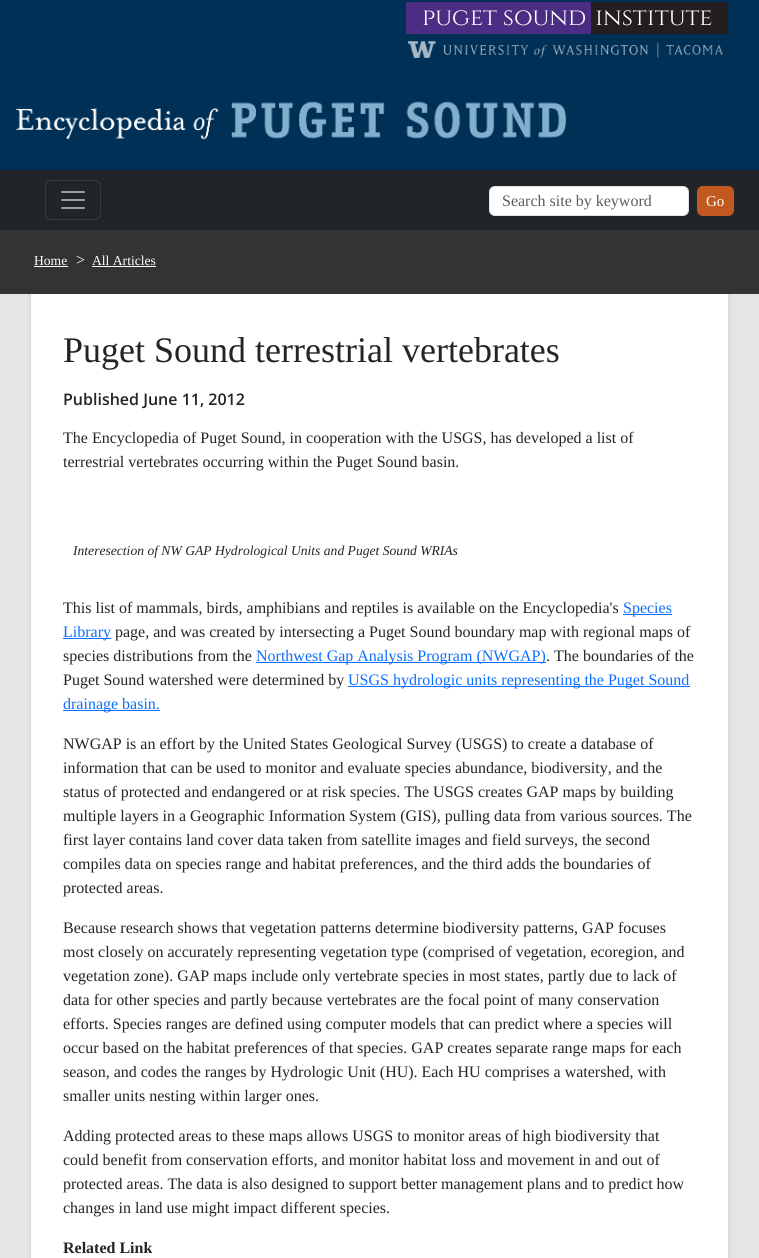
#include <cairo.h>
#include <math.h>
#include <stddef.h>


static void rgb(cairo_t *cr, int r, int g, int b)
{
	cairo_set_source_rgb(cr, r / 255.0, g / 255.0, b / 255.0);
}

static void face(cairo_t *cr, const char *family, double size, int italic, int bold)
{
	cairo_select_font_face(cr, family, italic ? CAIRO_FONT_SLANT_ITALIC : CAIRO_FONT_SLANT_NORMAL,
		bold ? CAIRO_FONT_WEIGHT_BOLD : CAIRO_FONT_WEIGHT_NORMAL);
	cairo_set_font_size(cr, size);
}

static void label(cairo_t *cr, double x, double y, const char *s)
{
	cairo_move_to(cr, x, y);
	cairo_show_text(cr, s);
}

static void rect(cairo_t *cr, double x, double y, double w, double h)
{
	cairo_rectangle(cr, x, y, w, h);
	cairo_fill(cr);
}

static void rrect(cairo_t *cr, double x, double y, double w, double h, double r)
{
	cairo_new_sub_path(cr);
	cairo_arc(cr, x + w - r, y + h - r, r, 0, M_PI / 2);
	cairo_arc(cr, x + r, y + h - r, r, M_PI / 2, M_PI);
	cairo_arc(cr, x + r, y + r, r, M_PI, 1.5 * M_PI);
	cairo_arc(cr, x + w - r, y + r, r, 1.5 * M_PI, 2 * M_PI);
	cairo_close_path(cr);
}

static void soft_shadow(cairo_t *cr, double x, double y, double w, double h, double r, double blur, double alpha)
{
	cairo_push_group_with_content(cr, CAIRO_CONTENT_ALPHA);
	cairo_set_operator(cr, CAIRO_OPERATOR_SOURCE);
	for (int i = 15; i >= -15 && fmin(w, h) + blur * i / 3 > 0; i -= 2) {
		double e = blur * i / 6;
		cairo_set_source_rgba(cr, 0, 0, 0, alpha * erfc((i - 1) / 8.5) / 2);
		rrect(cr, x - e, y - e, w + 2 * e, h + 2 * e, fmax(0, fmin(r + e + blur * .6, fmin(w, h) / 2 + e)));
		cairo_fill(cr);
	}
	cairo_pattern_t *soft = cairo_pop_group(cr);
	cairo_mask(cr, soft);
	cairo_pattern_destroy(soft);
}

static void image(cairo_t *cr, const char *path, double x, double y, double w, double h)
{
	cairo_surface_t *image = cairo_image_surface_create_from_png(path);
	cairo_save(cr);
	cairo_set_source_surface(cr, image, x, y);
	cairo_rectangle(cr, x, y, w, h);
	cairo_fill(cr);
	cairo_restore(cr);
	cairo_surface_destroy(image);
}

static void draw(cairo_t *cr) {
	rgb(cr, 229, 229, 229);
	cairo_paint(cr);
	rgb(cr, 1, 48, 86);
	rect(cr, 0, 0, 759, 170);
	rgb(cr, 75, 46, 131);
	rect(cr, 406, 2, 185, 32);
	face(cr, "Cinzel", 24, 0, 0);
	rgb(cr, 255, 255, 255);
	label(cr, 422, 25, "puget sound");
	rgb(cr, 35, 31, 32);
	rect(cr, 591, 2, 137, 32);
	rgb(cr, 255, 255, 255);
	label(cr, 595, 25, "institute");
	image(cr, "image0.png", 408, 41, 315, 17);
	image(cr, "image1.png", 16, 101, 551, 39);
	rgb(cr, 33, 37, 41);
	rect(cr, 0, 170, 759, 60);
	rrect(cr, 45.5, 180.5, 55, 39, 5.5);
	rgb(cr, 55, 59, 62);
	cairo_set_line_width(cr, 1);
	cairo_stroke(cr);
	image(cr, "image2.png", 61, 191, 24, 18);
	rgb(cr, 255, 255, 255);
	rrect(cr, 489.5, 186.5, 199, 29, 5.5);
	cairo_fill_preserve(cr);
	rgb(cr, 222, 226, 230);
	cairo_stroke(cr);
	face(cr, "Liberation Serif", 16, 0, 0);
	rgb(cr, 89, 92, 95);
	label(cr, 502, 206, "Search site by keyword");
	rgb(cr, 192, 88, 31);
	rrect(cr, 697.5, 186.5, 36, 29, 5.5);
	cairo_fill_preserve(cr);
	cairo_stroke(cr);
	face(cr, "Liberation Serif", 15, 0, 0);
	rgb(cr, 255, 255, 255);
	label(cr, 706, 206, "Go");
	rgb(cr, 164, 164, 164);
	soft_shadow(cr, 31, 294, 697, 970, 0, 2, 0.5);
	rgb(cr, 51, 51, 51);
	rect(cr, 0, 230, 759, 64);
	face(cr, "Liberation Serif", 13.6, 0, 0);
	rgb(cr, 255, 255, 255);
	label(cr, 34, 265, "Home");
	rect(cr, 34, 266, 34, 1);
	face(cr, "Liberation Serif", 16, 0, 0);
	label(cr, 76, 265, ">");
	face(cr, "Liberation Serif", 13.6, 0, 0);
	label(cr, 92, 265, "All Articles");
	rect(cr, 92, 266, 64, 1);
	rect(cr, 31, 294, 697, 964);
	face(cr, "Liberation Serif", 36, 0, 0);
	rgb(cr, 33, 37, 41);
	label(cr, 63, 362, "Puget Sound terrestrial vertebrates");
	face(cr, "Open Sans SemiBold", 16, 0, 0);
	label(cr, 63, 405, "Published June 11, 2012");
	face(cr, "Liberation Serif", 16, 0, 0);
	label(cr, 63, 443, "The Encyclopedia of Puget Sound, in cooperation with the USGS, has developed a list of");
	label(cr, 63, 467, "terrestrial vertebrates occurring within the Puget Sound basin.");
	face(cr, "Liberation Serif", 13.6, 1, 0);
	label(cr, 73, 555, "Interesection of NW GAP Hydrological Units and Puget Sound WRIAs");
	face(cr, "Liberation Serif", 16, 0, 0);
	label(cr, 63, 613, "This list of mammals, birds, amphibians and reptiles is available on the Encyclopedia's");
	rgb(cr, 13, 110, 253);
	rect(cr, 623, 614, 49, 1);
	label(cr, 623, 613, "Species");
	rect(cr, 63, 638, 48, 1);
	label(cr, 63, 637, "Library");
	rgb(cr, 33, 37, 41);
	label(cr, 115, 637, "page, and was created by intersecting a Puget Sound boundary map with regional maps of");
	label(cr, 63, 661, "species distributions from the");
	rgb(cr, 13, 110, 253);
	rect(cr, 256, 662, 290, 1);
	label(cr, 256, 661, "Northwest Gap Analysis Program (NWGAP)");
	rgb(cr, 33, 37, 41);
	label(cr, 546, 661, ". The boundaries of the");
	label(cr, 63, 685, "Puget Sound watershed were determined by");
	rgb(cr, 13, 110, 253);
	rect(cr, 348, 686, 342, 1);
	label(cr, 348, 685, "USGS hydrologic units representing the Puget Sound");
	rect(cr, 63, 710, 97, 1);
	label(cr, 63, 709, "drainage basin.");
	rgb(cr, 33, 37, 41);
	label(cr, 63, 749, "NWGAP is an effort by the United States Geological Survey (USGS) to create a database of");
	label(cr, 63, 773, "information that can be used to monitor and evaluate species abundance, biodiversity, and the");
	label(cr, 63, 797, "status of protected and endangered or at risk species. The USGS creates GAP maps by building");
	label(cr, 63, 821, "multiple layers in a Geographic Information System (GIS), pulling data from various sources. The");
	label(cr, 63, 845, "first layer contains land cover data taken from satellite images and field surveys, the second");
	label(cr, 63, 869, "compiles data on species range and habitat preferences, and the third adds the boundaries of");
	label(cr, 63, 893, "protected areas.");
	label(cr, 63, 933, "Because research shows that vegetation patterns determine biodiversity patterns, GAP focuses");
	label(cr, 63, 957, "most closely on accurately representing vegetation type (comprised of vegetation, ecoregion, and");
	label(cr, 63, 981, "vegetation zone). GAP maps include only vertebrate species in most states, partly due to lack of");
	label(cr, 63, 1005, "data for other species and partly because vertebrates are the focal point of many conservation");
	label(cr, 63, 1029, "efforts. Species ranges are defined using computer models that can predict where a species will");
	label(cr, 63, 1053, "occur based on the habitat preferences of that species. GAP creates separate range maps for each");
	label(cr, 63, 1077, "season, and codes the ranges by Hydrologic Unit (HU). Each HU comprises a watershed, with");
	label(cr, 63, 1101, "smaller units nesting within larger ones.");
	label(cr, 63, 1141, "Adding protected areas to these maps allows USGS to monitor areas of high biodiversity that");
	label(cr, 63, 1165, "could benefit from conservation efforts, and monitor habitat loss and movement in and out of");
	label(cr, 63, 1189, "protected areas. The data is also designed to support better management plans and to predict how");
	label(cr, 63, 1213, "changes in land use might impact different species.");
	face(cr, "Liberation Serif", 16, 0, 1);
	label(cr, 63, 1253, "Related Link");
}

int main(void) {
	cairo_surface_t *surface = cairo_image_surface_create(CAIRO_FORMAT_RGB24, 759, 1258);
	cairo_t *cr = cairo_create(surface);
	cairo_font_options_t *options = cairo_font_options_create();
	cairo_font_options_set_hint_metrics(options, CAIRO_HINT_METRICS_OFF);
	cairo_font_options_set_hint_style(options, CAIRO_HINT_STYLE_NONE);
	cairo_set_font_options(cr, options);
	cairo_set_miter_limit(cr, 4);
	draw(cr);
	cairo_surface_write_to_png(surface, "render.png");
	cairo_font_options_destroy(options);
	cairo_destroy(cr);
	cairo_surface_destroy(surface);
	return 0;
}
